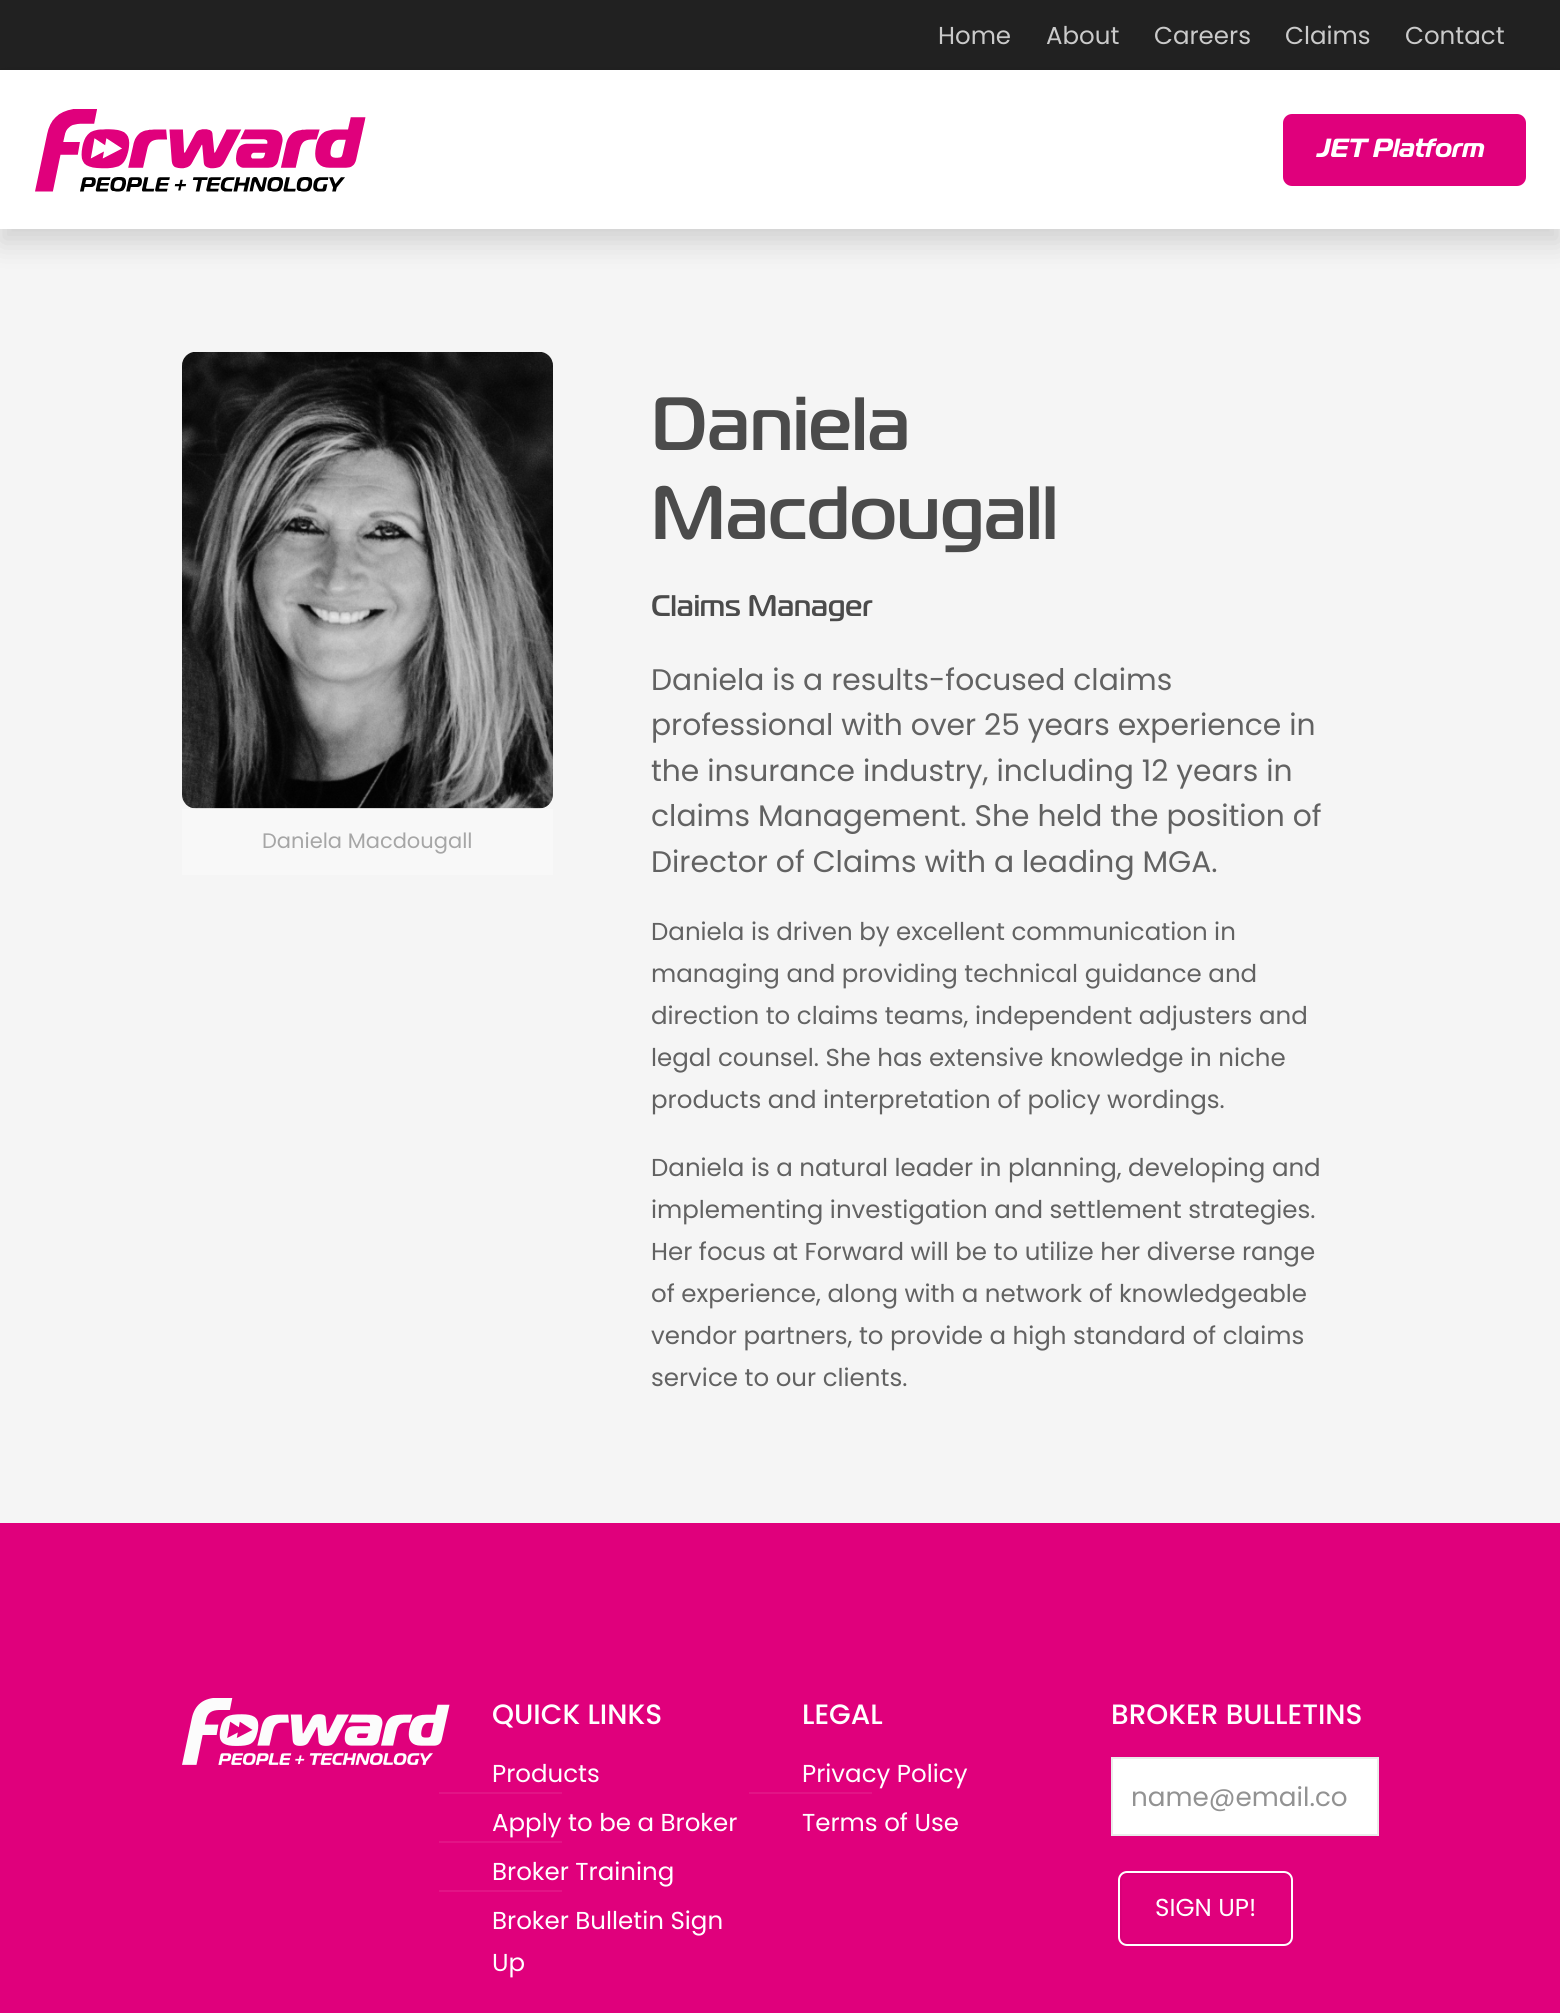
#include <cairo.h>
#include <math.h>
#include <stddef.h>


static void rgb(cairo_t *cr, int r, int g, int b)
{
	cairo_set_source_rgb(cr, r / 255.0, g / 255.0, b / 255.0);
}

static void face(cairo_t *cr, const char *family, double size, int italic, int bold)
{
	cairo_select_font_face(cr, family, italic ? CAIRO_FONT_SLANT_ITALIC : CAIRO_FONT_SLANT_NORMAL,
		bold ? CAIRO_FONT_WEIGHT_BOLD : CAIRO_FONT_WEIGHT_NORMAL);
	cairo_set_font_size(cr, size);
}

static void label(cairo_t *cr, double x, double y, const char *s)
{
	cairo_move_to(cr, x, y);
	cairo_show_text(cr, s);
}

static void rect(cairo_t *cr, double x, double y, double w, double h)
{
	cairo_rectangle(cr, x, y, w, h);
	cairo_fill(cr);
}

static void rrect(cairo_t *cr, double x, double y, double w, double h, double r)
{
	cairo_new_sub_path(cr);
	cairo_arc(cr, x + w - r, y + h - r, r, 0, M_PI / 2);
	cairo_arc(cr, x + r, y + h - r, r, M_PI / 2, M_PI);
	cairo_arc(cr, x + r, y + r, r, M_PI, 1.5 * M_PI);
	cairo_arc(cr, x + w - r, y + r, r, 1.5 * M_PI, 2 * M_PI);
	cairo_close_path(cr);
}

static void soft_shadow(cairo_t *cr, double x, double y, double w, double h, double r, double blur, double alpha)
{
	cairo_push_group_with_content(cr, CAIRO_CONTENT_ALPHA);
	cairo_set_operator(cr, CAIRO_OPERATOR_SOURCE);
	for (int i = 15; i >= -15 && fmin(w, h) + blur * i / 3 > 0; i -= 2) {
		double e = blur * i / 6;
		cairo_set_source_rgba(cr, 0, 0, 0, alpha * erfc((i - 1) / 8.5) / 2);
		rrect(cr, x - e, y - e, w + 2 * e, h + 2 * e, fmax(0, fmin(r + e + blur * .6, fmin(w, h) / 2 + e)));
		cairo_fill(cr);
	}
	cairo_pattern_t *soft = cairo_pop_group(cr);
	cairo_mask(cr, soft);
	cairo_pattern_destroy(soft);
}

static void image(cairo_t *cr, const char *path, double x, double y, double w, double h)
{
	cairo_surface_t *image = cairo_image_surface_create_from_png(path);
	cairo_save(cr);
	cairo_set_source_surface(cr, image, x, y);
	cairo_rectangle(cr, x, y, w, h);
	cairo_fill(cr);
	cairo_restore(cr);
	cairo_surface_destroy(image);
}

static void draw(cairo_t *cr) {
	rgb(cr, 33, 33, 33);
	cairo_paint(cr);
	face(cr, "Poppins", 24.5, 0, 0);
	rgb(cr, 202, 202, 202);
	label(cr, 938, 44, "Home");
	label(cr, 1046, 44, "About");
	label(cr, 1154, 44, "Careers");
	label(cr, 1285, 44, "Claims");
	label(cr, 1405, 44, "Contact");
	rgb(cr, 245, 245, 245);
	rect(cr, 0, 229, 1560, 1294);
	rgb(cr, 0, 0, 0);
	soft_shadow(cr, 0, 84, 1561, 159, 0, 14, 0.15);
	rgb(cr, 255, 255, 255);
	rect(cr, 0, 70, 1560, 159);
	image(cr, "image0.png", 35, 109, 331, 83);
	rgb(cr, 224, 0, 124);
	rrect(cr, 1283, 114, 243, 72, 9);
	cairo_fill(cr);
	face(cr, "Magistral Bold", 26.25, 1, 1);
	rgb(cr, 255, 255, 255);
	label(cr, 1317, 157, "JET Platform");
	image(cr, "image1.png", 182, 352, 371, 457);
	rgb(cr, 248, 248, 248);
	rect(cr, 182, 809, 371, 66);
	face(cr, "Poppins", 21, 0, 0);
	rgb(cr, 166, 166, 166);
	label(cr, 262, 848, "Daniela Macdougall");
	face(cr, "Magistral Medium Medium", 75.25, 0, 0);
	rgb(cr, 75, 75, 75);
	label(cr, 651, 450, "Daniela");
	label(cr, 651, 539, "Macdougall");
	face(cr, "Magistral Medium Medium", 29.75, 0, 0);
	label(cr, 651, 616, "Claims Manager");
	face(cr, "Poppins", 29.75, 0, 0);
	rgb(cr, 98, 98, 98);
	label(cr, 651, 690, "Daniela is a results-focused claims");
	label(cr, 651, 735, "professional with over 25 years experience in");
	label(cr, 651, 781, "the insurance industry, including 12 years in");
	label(cr, 651, 826, "claims Management. She held the position of");
	label(cr, 651, 872, "Director of Claims with a leading MGA.");
	face(cr, "Poppins", 24.5, 0, 0);
	label(cr, 651, 940, "Daniela is driven by excellent communication in");
	label(cr, 651, 982, "managing and providing technical guidance and");
	label(cr, 651, 1024, "direction to claims teams, independent adjusters and");
	label(cr, 651, 1066, "legal counsel. She has extensive knowledge in niche");
	label(cr, 651, 1108, "products and interpretation of policy wordings.");
	label(cr, 651, 1176, "Daniela is a natural leader in planning, developing and");
	label(cr, 651, 1218, "implementing investigation and settlement strategies.");
	label(cr, 651, 1260, "Her focus at Forward will be to utilize her diverse range");
	label(cr, 651, 1302, "of experience, along with a network of knowledgeable");
	label(cr, 651, 1344, "vendor partners, to provide a high standard of claims");
	label(cr, 651, 1386, "service to our clients.");
	rgb(cr, 224, 0, 124);
	rect(cr, 0, 1523, 1560, 490);
	image(cr, "image2.png", 182, 1698, 268, 67);
	face(cr, "Poppins Medium", 28, 0, 0);
	rgb(cr, 255, 255, 255);
	label(cr, 492, 1724, "QUICK LINKS");
	face(cr, "Poppins", 24.5, 0, 0);
	label(cr, 492, 1782, "Products");
	rgb(cr, 226, 20, 134);
	rect(cr, 439, 1792, 123, 2);
	rgb(cr, 255, 255, 255);
	label(cr, 492, 1831, "Apply to be a Broker");
	rgb(cr, 226, 20, 134);
	rect(cr, 439, 1841, 123, 2);
	rgb(cr, 255, 255, 255);
	label(cr, 492, 1880, "Broker Training");
	rgb(cr, 226, 20, 134);
	rect(cr, 439, 1890, 123, 2);
	rgb(cr, 255, 255, 255);
	label(cr, 492, 1929, "Broker Bulletin Sign");
	label(cr, 492, 1971, "Up");
	face(cr, "Poppins Medium", 28, 0, 0);
	label(cr, 802, 1724, "LEGAL");
	face(cr, "Poppins", 24.5, 0, 0);
	label(cr, 802, 1782, "Privacy Policy");
	rgb(cr, 226, 20, 134);
	rect(cr, 749, 1792, 123, 2);
	rgb(cr, 255, 255, 255);
	label(cr, 802, 1831, "Terms of Use");
	face(cr, "Poppins Medium", 28, 0, 0);
	label(cr, 1111, 1724, "BROKER BULLETINS");
	cairo_rectangle(cr, 1112, 1758, 266, 77);
	cairo_fill_preserve(cr);
	rgb(cr, 235, 235, 235);
	cairo_stroke(cr);
	face(cr, "Poppins", 26.25, 0, 0);
	rgb(cr, 146, 146, 146);
	label(cr, 1131, 1806, "name@email.co");
	rrect(cr, 1121, 1874, 170, 69, 6);
	rgb(cr, 217, 0, 120);
	cairo_stroke(cr);
	rrect(cr, 1119, 1872, 173, 73, 8);
	rgb(cr, 255, 255, 255);
	cairo_stroke(cr);
	face(cr, "Poppins", 24.5, 0, 0);
	label(cr, 1155, 1916, "SIGN UP!");
}

int main(void) {
	cairo_surface_t *surface = cairo_image_surface_create(CAIRO_FORMAT_RGB24, 1560, 2013);
	cairo_t *cr = cairo_create(surface);
	cairo_font_options_t *options = cairo_font_options_create();
	cairo_font_options_set_hint_metrics(options, CAIRO_HINT_METRICS_OFF);
	cairo_font_options_set_hint_style(options, CAIRO_HINT_STYLE_NONE);
	cairo_set_font_options(cr, options);
	cairo_set_miter_limit(cr, 4);
	draw(cr);
	cairo_surface_write_to_png(surface, "render.png");
	cairo_font_options_destroy(options);
	cairo_destroy(cr);
	cairo_surface_destroy(surface);
	return 0;
}
